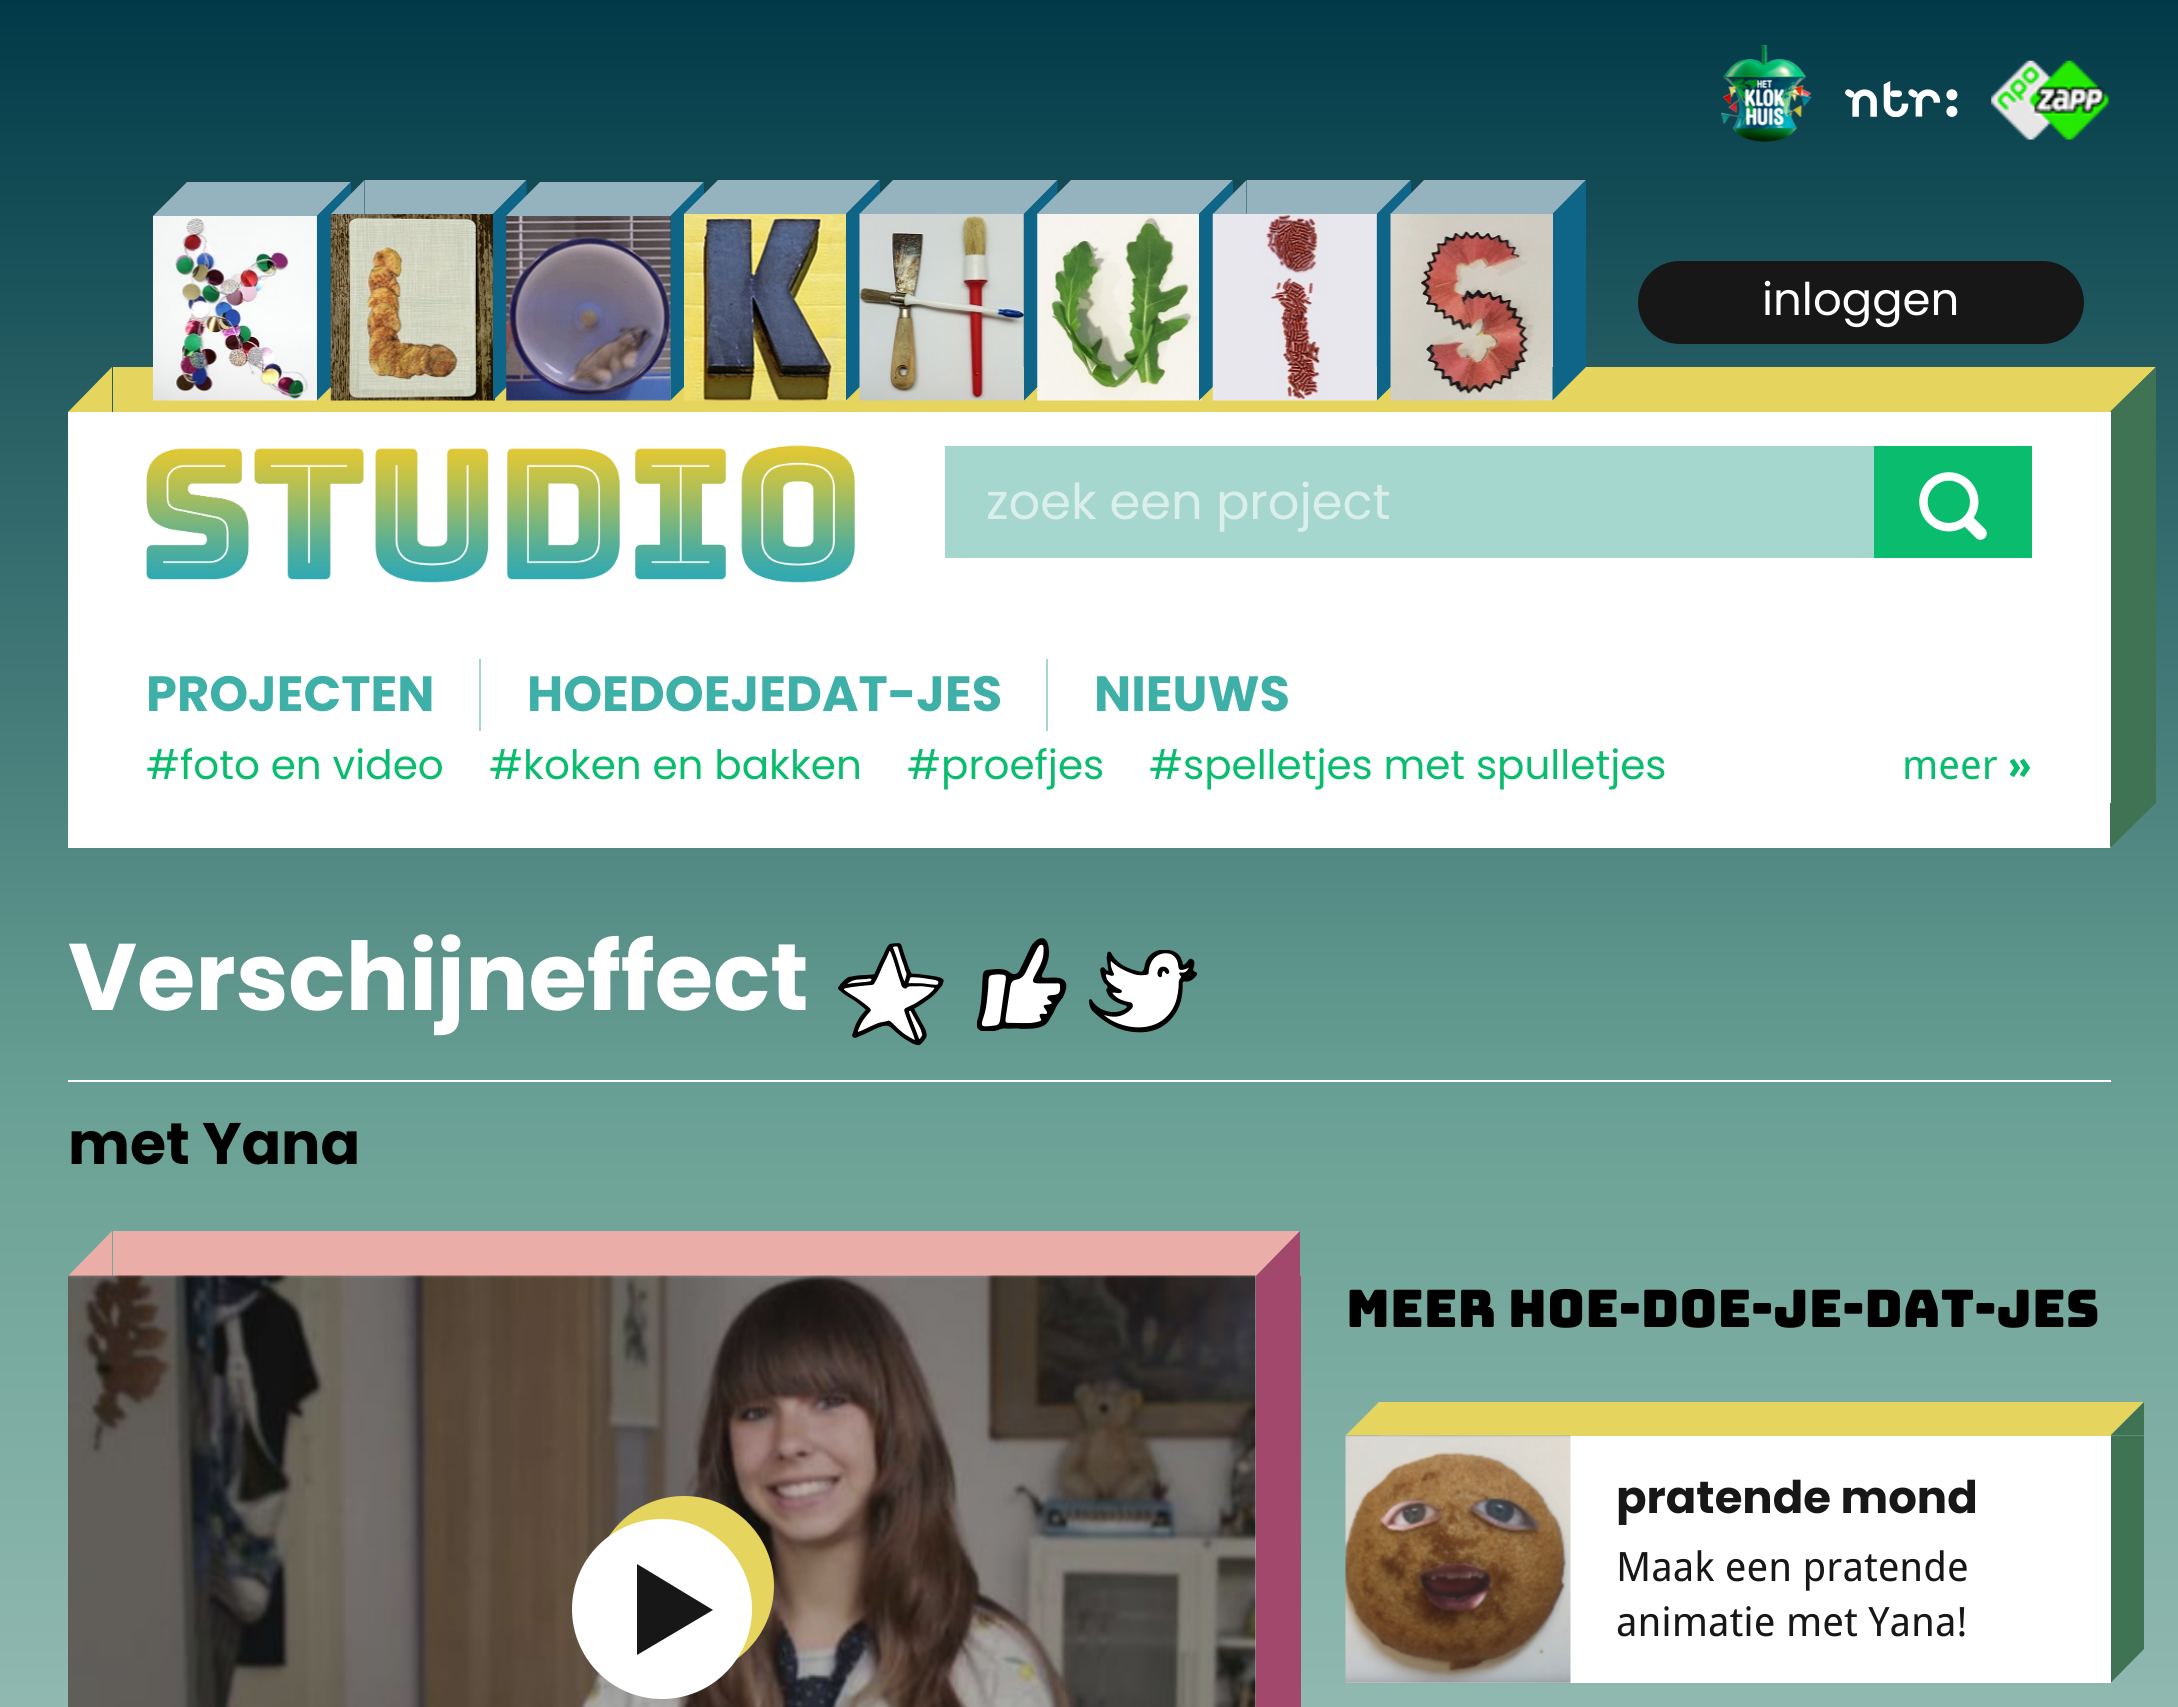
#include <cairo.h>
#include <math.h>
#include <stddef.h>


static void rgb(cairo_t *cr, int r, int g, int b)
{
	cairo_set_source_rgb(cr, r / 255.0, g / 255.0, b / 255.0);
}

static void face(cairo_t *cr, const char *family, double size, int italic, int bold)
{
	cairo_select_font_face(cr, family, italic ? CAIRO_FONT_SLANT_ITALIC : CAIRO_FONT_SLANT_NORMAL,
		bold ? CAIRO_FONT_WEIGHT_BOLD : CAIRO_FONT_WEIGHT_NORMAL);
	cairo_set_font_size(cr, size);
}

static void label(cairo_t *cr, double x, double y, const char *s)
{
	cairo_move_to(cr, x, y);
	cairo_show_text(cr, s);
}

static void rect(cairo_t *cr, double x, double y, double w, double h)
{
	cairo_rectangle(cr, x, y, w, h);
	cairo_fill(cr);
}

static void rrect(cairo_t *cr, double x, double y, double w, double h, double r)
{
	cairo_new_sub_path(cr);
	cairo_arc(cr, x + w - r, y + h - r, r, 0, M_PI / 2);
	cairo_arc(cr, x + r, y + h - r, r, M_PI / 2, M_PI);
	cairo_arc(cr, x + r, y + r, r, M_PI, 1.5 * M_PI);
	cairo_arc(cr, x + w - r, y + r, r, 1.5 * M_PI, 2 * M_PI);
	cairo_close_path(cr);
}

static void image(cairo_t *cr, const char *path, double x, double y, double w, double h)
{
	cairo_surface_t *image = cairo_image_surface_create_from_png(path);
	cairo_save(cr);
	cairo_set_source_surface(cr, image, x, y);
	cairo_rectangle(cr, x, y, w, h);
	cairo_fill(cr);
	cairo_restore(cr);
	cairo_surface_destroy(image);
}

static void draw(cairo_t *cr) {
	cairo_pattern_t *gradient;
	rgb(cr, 255, 255, 255);
	cairo_paint(cr);
	gradient = cairo_pattern_create_linear(1089, 0, 1089, 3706);
	cairo_pattern_add_color_stop_rgba(gradient, 0, 0.004, 0.224, 0.282, 1);
	cairo_pattern_add_color_stop_rgba(gradient, 0.3, 0.416, 0.631, 0.584, 1);
	cairo_pattern_add_color_stop_rgba(gradient, 0.9, 0.969, 0.976, 0.98, 1);
	cairo_set_source(cr, gradient);
	cairo_pattern_destroy(gradient);
	rect(cr, 0, 0, 2178, 1707);
	image(cr, "image0.png", 1721, 45, 91, 97);
	image(cr, "image1.png", 1845, 81, 113, 36);
	image(cr, "image2.png", 1991, 60, 119, 80);
	rgb(cr, 149, 179, 190);
	rect(cr, 187, 182, 130, 34);
	cairo_new_path(cr);
	cairo_move_to(cr, 187, 182);
	cairo_line_to(cr, 187, 216);
	cairo_line_to(cr, 153, 216);
	cairo_close_path(cr);
	cairo_fill(cr);
	cairo_new_path(cr);
	cairo_move_to(cr, 317, 182);
	cairo_line_to(cr, 351, 182);
	cairo_line_to(cr, 317, 216);
	cairo_close_path(cr);
	cairo_fill(cr);
	rgb(cr, 229, 213, 95);
	rect(cr, 113, 367, 1998, 45);
	image(cr, "image3.png", 153, 216, 164, 185);
	rgb(cr, 15, 101, 136);
	rect(cr, 317, 216, 14, 151);
	cairo_new_path(cr);
	cairo_move_to(cr, 351, 216);
	cairo_line_to(cr, 317, 216);
	cairo_line_to(cr, 351, 182);
	cairo_close_path(cr);
	cairo_fill(cr);
	cairo_new_path(cr);
	cairo_move_to(cr, 317, 367);
	cairo_line_to(cr, 351, 367);
	cairo_line_to(cr, 317, 400.5);
	cairo_close_path(cr);
	cairo_fill(cr);
	image(cr, "image4.png", 330, 213, 165, 188);
	rgb(cr, 149, 179, 190);
	rect(cr, 365, 180, 128, 34);
	cairo_new_path(cr);
	cairo_move_to(cr, 364.5, 180);
	cairo_line_to(cr, 364.5, 214);
	cairo_line_to(cr, 331, 214);
	cairo_close_path(cr);
	cairo_fill(cr);
	cairo_new_path(cr);
	cairo_move_to(cr, 493, 180);
	cairo_line_to(cr, 526.5, 180);
	cairo_line_to(cr, 493, 214);
	cairo_close_path(cr);
	cairo_fill(cr);
	rgb(cr, 15, 101, 136);
	rect(cr, 493, 214, 15, 153);
	cairo_new_path(cr);
	cairo_move_to(cr, 526.5, 214);
	cairo_line_to(cr, 493, 214);
	cairo_line_to(cr, 526.5, 180);
	cairo_close_path(cr);
	cairo_fill(cr);
	cairo_new_path(cr);
	cairo_move_to(cr, 493, 367);
	cairo_line_to(cr, 526.5, 367);
	cairo_line_to(cr, 493, 400.5);
	cairo_close_path(cr);
	cairo_fill(cr);
	rgb(cr, 149, 179, 190);
	rect(cr, 540, 182, 131, 34);
	cairo_new_path(cr);
	cairo_move_to(cr, 540, 182);
	cairo_line_to(cr, 540, 216);
	cairo_line_to(cr, 506, 216);
	cairo_close_path(cr);
	cairo_fill(cr);
	cairo_new_path(cr);
	cairo_move_to(cr, 670.5, 182);
	cairo_line_to(cr, 704, 182);
	cairo_line_to(cr, 670.5, 216);
	cairo_close_path(cr);
	cairo_fill(cr);
	image(cr, "image5.png", 506, 216, 165, 185);
	rgb(cr, 15, 101, 136);
	rect(cr, 671, 216, 13, 151);
	cairo_new_path(cr);
	cairo_move_to(cr, 704, 216);
	cairo_line_to(cr, 670.5, 216);
	cairo_line_to(cr, 704, 182);
	cairo_close_path(cr);
	cairo_fill(cr);
	cairo_new_path(cr);
	cairo_move_to(cr, 670.5, 367);
	cairo_line_to(cr, 704, 367);
	cairo_line_to(cr, 670.5, 400.5);
	cairo_close_path(cr);
	cairo_fill(cr);
	image(cr, "image6.png", 684, 213, 164, 188);
	rgb(cr, 149, 179, 190);
	rect(cr, 718, 180, 128, 34);
	cairo_new_path(cr);
	cairo_move_to(cr, 718, 180);
	cairo_line_to(cr, 718, 214);
	cairo_line_to(cr, 684, 214);
	cairo_close_path(cr);
	cairo_fill(cr);
	cairo_new_path(cr);
	cairo_move_to(cr, 846, 180);
	cairo_line_to(cr, 880, 180);
	cairo_line_to(cr, 846, 214);
	cairo_close_path(cr);
	cairo_fill(cr);
	rgb(cr, 15, 101, 136);
	rect(cr, 846, 214, 14, 153);
	cairo_new_path(cr);
	cairo_move_to(cr, 880, 214);
	cairo_line_to(cr, 846, 214);
	cairo_line_to(cr, 880, 180);
	cairo_close_path(cr);
	cairo_fill(cr);
	cairo_new_path(cr);
	cairo_move_to(cr, 846, 367);
	cairo_line_to(cr, 880, 367);
	cairo_line_to(cr, 846, 400.5);
	cairo_close_path(cr);
	cairo_fill(cr);
	image(cr, "image7.png", 859, 213, 165, 188);
	rgb(cr, 149, 179, 190);
	rect(cr, 893, 180, 131, 34);
	cairo_new_path(cr);
	cairo_move_to(cr, 893, 180);
	cairo_line_to(cr, 893, 214);
	cairo_line_to(cr, 859.5, 214);
	cairo_close_path(cr);
	cairo_fill(cr);
	cairo_new_path(cr);
	cairo_move_to(cr, 1024, 180);
	cairo_line_to(cr, 1057.5, 180);
	cairo_line_to(cr, 1024, 214);
	cairo_close_path(cr);
	cairo_fill(cr);
	rgb(cr, 15, 101, 136);
	rect(cr, 1024, 214, 14, 153);
	cairo_new_path(cr);
	cairo_move_to(cr, 1057.5, 214);
	cairo_line_to(cr, 1024, 214);
	cairo_line_to(cr, 1057.5, 180);
	cairo_close_path(cr);
	cairo_fill(cr);
	cairo_new_path(cr);
	cairo_move_to(cr, 1024, 367);
	cairo_line_to(cr, 1057.5, 367);
	cairo_line_to(cr, 1024, 400.5);
	cairo_close_path(cr);
	cairo_fill(cr);
	image(cr, "image8.png", 1037, 213, 165, 188);
	rgb(cr, 149, 179, 190);
	rect(cr, 1071, 180, 128, 34);
	cairo_new_path(cr);
	cairo_move_to(cr, 1071, 180);
	cairo_line_to(cr, 1071, 214);
	cairo_line_to(cr, 1037, 214);
	cairo_close_path(cr);
	cairo_fill(cr);
	cairo_new_path(cr);
	cairo_move_to(cr, 1199, 180);
	cairo_line_to(cr, 1233, 180);
	cairo_line_to(cr, 1199, 214);
	cairo_close_path(cr);
	cairo_fill(cr);
	rgb(cr, 15, 101, 136);
	rect(cr, 1199, 214, 14, 153);
	cairo_new_path(cr);
	cairo_move_to(cr, 1233, 214);
	cairo_line_to(cr, 1199, 214);
	cairo_line_to(cr, 1233, 180);
	cairo_close_path(cr);
	cairo_fill(cr);
	cairo_new_path(cr);
	cairo_move_to(cr, 1199, 367);
	cairo_line_to(cr, 1233, 367);
	cairo_line_to(cr, 1199, 400.5);
	cairo_close_path(cr);
	cairo_fill(cr);
	image(cr, "image9.png", 1212, 213, 165, 188);
	rgb(cr, 149, 179, 190);
	rect(cr, 1247, 180, 130, 34);
	cairo_new_path(cr);
	cairo_move_to(cr, 1246.5, 180);
	cairo_line_to(cr, 1246.5, 214);
	cairo_line_to(cr, 1213, 214);
	cairo_close_path(cr);
	cairo_fill(cr);
	cairo_new_path(cr);
	cairo_move_to(cr, 1377, 180);
	cairo_line_to(cr, 1411, 180);
	cairo_line_to(cr, 1377, 214);
	cairo_close_path(cr);
	cairo_fill(cr);
	rgb(cr, 15, 101, 136);
	rect(cr, 1377, 214, 14, 153);
	cairo_new_path(cr);
	cairo_move_to(cr, 1411, 214);
	cairo_line_to(cr, 1377, 214);
	cairo_line_to(cr, 1411, 180);
	cairo_close_path(cr);
	cairo_fill(cr);
	cairo_new_path(cr);
	cairo_move_to(cr, 1377, 367);
	cairo_line_to(cr, 1411, 367);
	cairo_line_to(cr, 1377, 400.5);
	cairo_close_path(cr);
	cairo_fill(cr);
	image(cr, "image10.png", 1390, 213, 165, 188);
	rgb(cr, 149, 179, 190);
	rect(cr, 1424, 180, 129, 34);
	cairo_new_path(cr);
	cairo_move_to(cr, 1424, 180);
	cairo_line_to(cr, 1424, 214);
	cairo_line_to(cr, 1390.5, 214);
	cairo_close_path(cr);
	cairo_fill(cr);
	cairo_new_path(cr);
	cairo_move_to(cr, 1552.5, 180);
	cairo_line_to(cr, 1586, 180);
	cairo_line_to(cr, 1552.5, 214);
	cairo_close_path(cr);
	cairo_fill(cr);
	rgb(cr, 15, 101, 136);
	rect(cr, 1553, 214, 33, 153);
	cairo_new_path(cr);
	cairo_move_to(cr, 1586, 214);
	cairo_line_to(cr, 1552.5, 214);
	cairo_line_to(cr, 1586, 180);
	cairo_close_path(cr);
	cairo_fill(cr);
	cairo_new_path(cr);
	cairo_move_to(cr, 1552.5, 367);
	cairo_line_to(cr, 1586, 367);
	cairo_line_to(cr, 1552.5, 400.5);
	cairo_close_path(cr);
	cairo_fill(cr);
	rgb(cr, 23, 23, 23);
	rrect(cr, 1638, 261, 446, 83, 41.5);
	cairo_fill(cr);
	face(cr, "Poppins", 45, 0, 0);
	rgb(cr, 255, 255, 255);
	label(cr, 1762, 315, "inloggen");
	rect(cr, 68, 412, 2043, 436);
	rgb(cr, 229, 213, 95);
	cairo_new_path(cr);
	cairo_move_to(cr, 112, 367);
	cairo_line_to(cr, 112, 412);
	cairo_line_to(cr, 68, 412);
	cairo_close_path(cr);
	cairo_fill(cr);
	cairo_new_path(cr);
	cairo_move_to(cr, 2110, 367);
	cairo_line_to(cr, 2156, 367);
	cairo_line_to(cr, 2110, 412);
	cairo_close_path(cr);
	cairo_fill(cr);
	image(cr, "image11.png", 146, 445, 709, 138);
	rgb(cr, 64, 115, 84);
	rect(cr, 2111, 412, 45, 391);
	cairo_new_path(cr);
	cairo_move_to(cr, 2156, 412);
	cairo_line_to(cr, 2110, 412);
	cairo_line_to(cr, 2156, 367);
	cairo_close_path(cr);
	cairo_fill(cr);
	cairo_new_path(cr);
	cairo_move_to(cr, 2110, 803);
	cairo_line_to(cr, 2156, 803);
	cairo_line_to(cr, 2110, 848);
	cairo_close_path(cr);
	cairo_fill(cr);
	rgb(cr, 166, 215, 206);
	rect(cr, 945, 446, 929, 112);
	face(cr, "Poppins", 49.5, 0, 0);
	rgb(cr, 218, 238, 234);
	label(cr, 986, 519, "zoek een project");
	rgb(cr, 10, 189, 110);
	rect(cr, 1874, 446, 158, 112);
	image(cr, "image12.png", 1919, 472, 68, 68);
	rgb(cr, 166, 215, 206);
	rect(cr, 479, 659, 2, 72);
	face(cr, "Poppins", 49.5, 0, 1);
	rgb(cr, 63, 176, 168);
	label(cr, 146, 711, "PROJECTEN");
	rgb(cr, 166, 215, 206);
	rect(cr, 1046, 659, 2, 72);
	rgb(cr, 63, 176, 168);
	label(cr, 527, 711, "HOEDOEJEDAT-JES");
	label(cr, 1094, 711, "NIEUWS");
	face(cr, "Poppins", 40.5, 0, 0);
	rgb(cr, 10, 189, 110);
	label(cr, 146, 779, "#foto en video");
	label(cr, 489, 779, "#koken en bakken");
	label(cr, 907, 779, "#proefjes");
	label(cr, 1149, 779, "#spelletjes met spulletjes");
	face(cr, "Droid Sans", 40.5, 0, 0);
	label(cr, 1902, 779, "meer");
	face(cr, "Droid Sans", 40.5, 0, 1);
	label(cr, 2008, 779, "»");
	rgb(cr, 255, 255, 255);
	rect(cr, 68, 1080, 2043, 2);
	face(cr, "Poppins", 94.5, 0, 1);
	label(cr, 68, 1010, "Verschijneffect");
	image(cr, "image13.png", 838, 943, 106, 103);
	image(cr, "image14.png", 977, 938, 90, 93);
	image(cr, "image15.png", 1089, 950, 108, 83);
	face(cr, "Poppins", 58.5, 0, 1);
	rgb(cr, 0, 0, 0);
	label(cr, 68, 1164, "met Yana");
	rgb(cr, 197, 197, 197);
	rect(cr, 68, 1276, 1188, 431);
	rgb(cr, 234, 173, 168);
	rect(cr, 113, 1231, 1143, 45);
	cairo_new_path(cr);
	cairo_move_to(cr, 112, 1231);
	cairo_line_to(cr, 112, 1276);
	cairo_line_to(cr, 68, 1276);
	cairo_close_path(cr);
	cairo_fill(cr);
	cairo_new_path(cr);
	cairo_move_to(cr, 1256, 1231);
	cairo_line_to(cr, 1300, 1231);
	cairo_line_to(cr, 1256, 1276);
	cairo_close_path(cr);
	cairo_fill(cr);
	image(cr, "image16.png", 68, 1275, 1188, 432);
	rgb(cr, 229, 213, 95);
	cairo_arc(cr, 684, 1586, 90, 0, 2 * M_PI);
	cairo_fill(cr);
	rgb(cr, 255, 255, 255);
	cairo_arc(cr, 662, 1609, 90, 0, 2 * M_PI);
	cairo_fill(cr);
	rgb(cr, 23, 23, 23);
	cairo_new_path(cr);
	cairo_move_to(cr, 637, 1564);
	cairo_line_to(cr, 713, 1610);
	cairo_line_to(cr, 637, 1655);
	cairo_close_path(cr);
	cairo_fill(cr);
	rgb(cr, 163, 72, 109);
	rect(cr, 1256, 1276, 45, 431);
	cairo_new_path(cr);
	cairo_move_to(cr, 1300, 1276);
	cairo_line_to(cr, 1256, 1276);
	cairo_line_to(cr, 1300, 1231);
	cairo_close_path(cr);
	cairo_fill(cr);
	face(cr, "Bungee", 51.75, 0, 0);
	rgb(cr, 0, 0, 0);
	label(cr, 1346, 1327, "MEER HOE-DOE-JE-DAT-JES");
	rgb(cr, 229, 213, 95);
	rect(cr, 1379, 1402, 732, 34);
	cairo_new_path(cr);
	cairo_move_to(cr, 1379, 1402);
	cairo_line_to(cr, 1379, 1435.5);
	cairo_line_to(cr, 1345.5, 1435.5);
	cairo_close_path(cr);
	cairo_fill(cr);
	cairo_new_path(cr);
	cairo_move_to(cr, 2110.5, 1402);
	cairo_line_to(cr, 2144, 1402);
	cairo_line_to(cr, 2110.5, 1435.5);
	cairo_close_path(cr);
	cairo_fill(cr);
	rgb(cr, 64, 115, 84);
	cairo_new_path(cr);
	cairo_move_to(cr, 2110.5, 1649);
	cairo_line_to(cr, 2144, 1649);
	cairo_line_to(cr, 2110.5, 1683);
	cairo_close_path(cr);
	cairo_fill(cr);
	rgb(cr, 255, 255, 255);
	rect(cr, 1346, 1436, 765, 247);
	image(cr, "image17.png", 1345, 1435, 226, 249);
	face(cr, "Poppins", 45, 0, 1);
	rgb(cr, 23, 23, 23);
	label(cr, 1616, 1513, "pratende mond");
	face(cr, "Droid Sans", 40.5, 0, 0);
	label(cr, 1616, 1581, "Maak een pratende");
	label(cr, 1616, 1636, "animatie met Yana!");
	rgb(cr, 64, 115, 84);
	rect(cr, 2111, 1436, 33, 213);
	cairo_new_path(cr);
	cairo_move_to(cr, 2144, 1435.5);
	cairo_line_to(cr, 2110.5, 1435.5);
	cairo_line_to(cr, 2144, 1402);
	cairo_close_path(cr);
	cairo_fill(cr);
}

int main(void) {
	cairo_surface_t *surface = cairo_image_surface_create(CAIRO_FORMAT_RGB24, 2178, 1707);
	cairo_t *cr = cairo_create(surface);
	cairo_font_options_t *options = cairo_font_options_create();
	cairo_font_options_set_hint_metrics(options, CAIRO_HINT_METRICS_OFF);
	cairo_font_options_set_hint_style(options, CAIRO_HINT_STYLE_NONE);
	cairo_set_font_options(cr, options);
	cairo_set_miter_limit(cr, 4);
	draw(cr);
	cairo_surface_write_to_png(surface, "render.png");
	cairo_font_options_destroy(options);
	cairo_destroy(cr);
	cairo_surface_destroy(surface);
	return 0;
}
